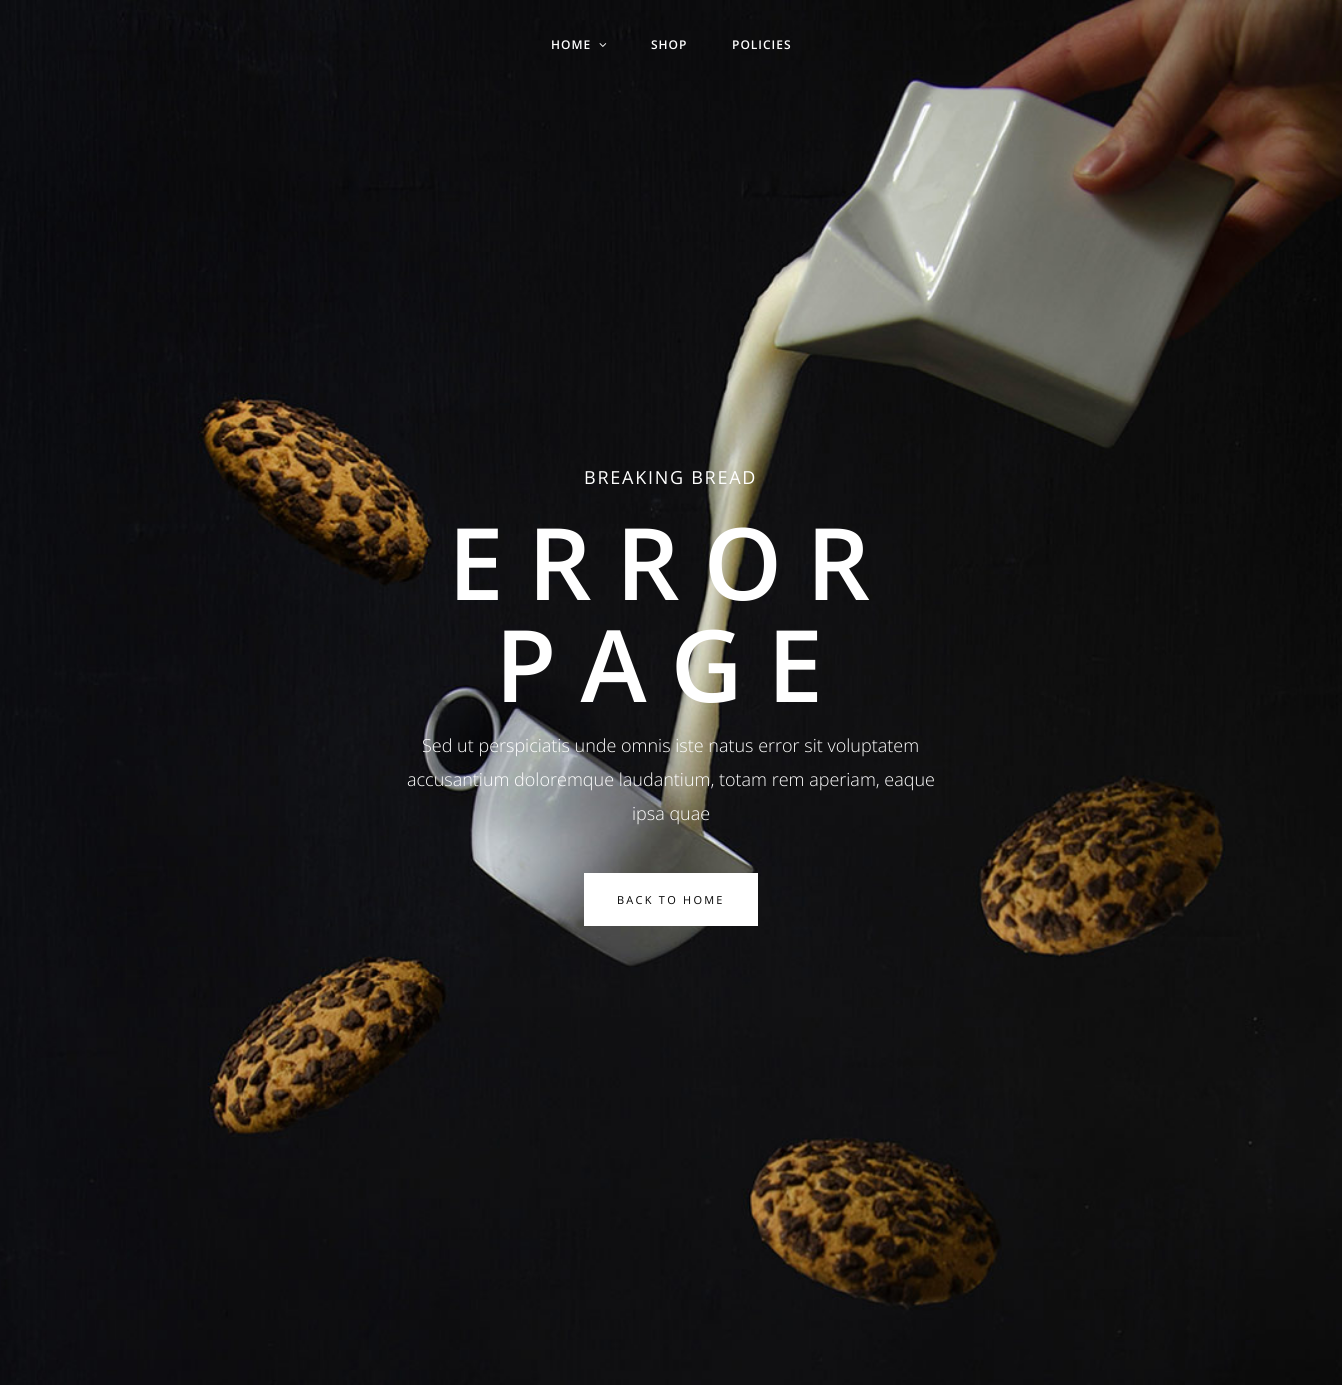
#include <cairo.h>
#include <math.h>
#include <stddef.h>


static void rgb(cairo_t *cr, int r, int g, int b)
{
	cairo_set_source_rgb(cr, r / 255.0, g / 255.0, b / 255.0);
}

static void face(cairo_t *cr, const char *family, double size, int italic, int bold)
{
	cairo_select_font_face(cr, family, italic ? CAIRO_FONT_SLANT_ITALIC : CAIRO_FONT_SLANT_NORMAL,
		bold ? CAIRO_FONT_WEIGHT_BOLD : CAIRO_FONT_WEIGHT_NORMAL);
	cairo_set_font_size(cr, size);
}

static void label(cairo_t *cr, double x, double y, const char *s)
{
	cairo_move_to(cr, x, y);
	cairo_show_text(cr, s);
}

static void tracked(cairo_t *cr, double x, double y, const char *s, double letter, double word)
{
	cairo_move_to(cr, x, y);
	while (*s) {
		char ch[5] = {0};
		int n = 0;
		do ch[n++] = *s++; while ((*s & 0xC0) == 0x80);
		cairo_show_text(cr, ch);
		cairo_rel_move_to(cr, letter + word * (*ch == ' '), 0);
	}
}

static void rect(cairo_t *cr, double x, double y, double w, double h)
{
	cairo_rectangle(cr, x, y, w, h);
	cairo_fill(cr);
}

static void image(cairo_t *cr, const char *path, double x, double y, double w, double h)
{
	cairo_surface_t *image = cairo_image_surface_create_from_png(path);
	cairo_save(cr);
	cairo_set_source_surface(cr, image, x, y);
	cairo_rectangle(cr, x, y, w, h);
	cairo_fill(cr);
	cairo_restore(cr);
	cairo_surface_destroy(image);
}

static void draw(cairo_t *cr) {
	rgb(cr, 255, 255, 255);
	cairo_paint(cr);
	image(cr, "image1.png", 0, 0, 1342, 1385);
	face(cr, "Open Sans SemiBold", 12, 0, 0);
	rgb(cr, 255, 255, 255);
	tracked(cr, 551, 49, "HOME", 1, 0);
	image(cr, "image0.png", 599, 43, 8, 4);
	tracked(cr, 651, 49, "SHOP", 1, 0);
	tracked(cr, 732, 49, "POLICIES", 1, 0);
	face(cr, "Open Sans", 18, 0, 0);
	tracked(cr, 584, 484, "BREAKING BREAD", 1.75, 0);
	face(cr, "Open Sans SemiBold", 100, 0, 0);
	tracked(cr, 448, 600, "ERROR", 24, 0);
	tracked(cr, 495, 702, "PAGE", 24, 0);
	face(cr, "Open Sans Light", 18, 0, 0);
	label(cr, 422, 752, "Sed ut perspiciatis unde omnis iste natus error sit voluptatem");
	label(cr, 407, 786, "accusantium doloremque laudantium, totam rem aperiam, eaque");
	label(cr, 632, 820, "ipsa quae");
	rect(cr, 584, 873, 174, 53);
	face(cr, "Open Sans", 11, 0, 0);
	rgb(cr, 0, 0, 0);
	tracked(cr, 617, 904, "BACK TO HOME", 2.25, 0);
}

int main(void) {
	cairo_surface_t *surface = cairo_image_surface_create(CAIRO_FORMAT_RGB24, 1342, 1385);
	cairo_t *cr = cairo_create(surface);
	cairo_font_options_t *options = cairo_font_options_create();
	cairo_font_options_set_hint_metrics(options, CAIRO_HINT_METRICS_OFF);
	cairo_font_options_set_hint_style(options, CAIRO_HINT_STYLE_NONE);
	cairo_set_font_options(cr, options);
	cairo_set_miter_limit(cr, 4);
	draw(cr);
	cairo_surface_write_to_png(surface, "render.png");
	cairo_font_options_destroy(options);
	cairo_destroy(cr);
	cairo_surface_destroy(surface);
	return 0;
}
